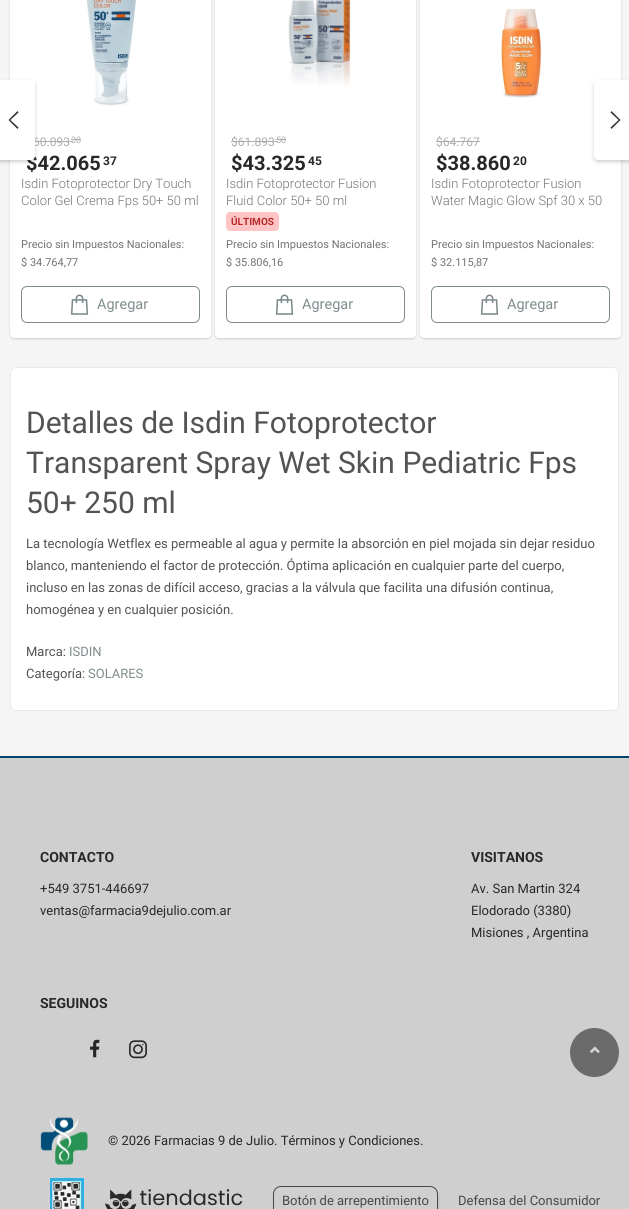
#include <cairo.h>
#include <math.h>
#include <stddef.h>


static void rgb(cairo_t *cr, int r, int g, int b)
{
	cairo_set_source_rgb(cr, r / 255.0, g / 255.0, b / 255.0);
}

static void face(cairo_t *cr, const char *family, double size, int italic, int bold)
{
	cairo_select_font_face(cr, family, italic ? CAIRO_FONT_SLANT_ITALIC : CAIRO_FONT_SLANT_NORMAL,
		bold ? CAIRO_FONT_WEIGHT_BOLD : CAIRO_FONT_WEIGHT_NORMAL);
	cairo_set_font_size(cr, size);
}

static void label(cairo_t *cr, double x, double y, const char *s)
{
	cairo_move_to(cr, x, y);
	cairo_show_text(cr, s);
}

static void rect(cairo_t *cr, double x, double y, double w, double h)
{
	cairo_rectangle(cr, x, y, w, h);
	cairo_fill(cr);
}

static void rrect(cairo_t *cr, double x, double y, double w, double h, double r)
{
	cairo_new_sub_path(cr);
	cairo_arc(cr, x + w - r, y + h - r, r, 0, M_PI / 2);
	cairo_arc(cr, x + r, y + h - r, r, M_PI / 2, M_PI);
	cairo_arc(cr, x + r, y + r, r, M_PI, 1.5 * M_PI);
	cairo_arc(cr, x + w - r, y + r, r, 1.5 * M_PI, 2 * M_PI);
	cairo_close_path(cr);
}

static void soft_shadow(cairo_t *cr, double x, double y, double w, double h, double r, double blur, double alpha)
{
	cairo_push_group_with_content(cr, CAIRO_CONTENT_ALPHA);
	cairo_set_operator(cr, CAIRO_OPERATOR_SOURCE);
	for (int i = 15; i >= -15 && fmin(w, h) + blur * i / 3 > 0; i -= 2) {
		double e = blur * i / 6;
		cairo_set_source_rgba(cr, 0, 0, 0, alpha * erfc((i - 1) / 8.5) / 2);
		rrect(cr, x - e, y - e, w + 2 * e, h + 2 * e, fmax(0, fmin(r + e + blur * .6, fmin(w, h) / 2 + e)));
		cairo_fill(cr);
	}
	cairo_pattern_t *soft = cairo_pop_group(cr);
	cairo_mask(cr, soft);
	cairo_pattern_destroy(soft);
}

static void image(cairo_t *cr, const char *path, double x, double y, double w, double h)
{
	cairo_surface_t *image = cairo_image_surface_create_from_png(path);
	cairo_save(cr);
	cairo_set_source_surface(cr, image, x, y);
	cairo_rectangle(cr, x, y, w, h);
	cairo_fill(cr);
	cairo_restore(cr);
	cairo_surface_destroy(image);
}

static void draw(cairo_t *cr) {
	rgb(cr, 245, 245, 245);
	cairo_paint(cr);
	rgb(cr, 0, 0, 0);
	soft_shadow(cr, 10, -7, 201, 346, 4, 1, 0.16);
	rgb(cr, 255, 255, 255);
	rrect(cr, 10, -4, 201, 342, 4);
	cairo_fill(cr);
	rgb(cr, 173, 173, 173);
	rect(cr, 35, 141, 38, 1);
	rgb(cr, 0, 0, 0);
	soft_shadow(cr, -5, 82, 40, 80, 4, 2, 0.19);
	face(cr, "Roboto", 12, 0, 0);
	rgb(cr, 173, 173, 173);
	label(cr, 33, 146, "60.093");
	face(cr, "Roboto", 20, 0, 1);
	rgb(cr, 40, 40, 40);
	label(cr, 26, 170, "$42.065");
	rgb(cr, 255, 255, 255);
	cairo_new_path(cr);
	cairo_move_to(cr, 0, 80);
	cairo_line_to(cr, 31, 80);
	cairo_curve_to(cr, 33, 80, 35, 82, 35, 84);
	cairo_line_to(cr, 35, 156);
	cairo_curve_to(cr, 35, 158, 33, 160, 31, 160);
	cairo_line_to(cr, 0, 160);
	cairo_close_path(cr);
	cairo_fill(cr);
	rgb(cr, 51, 51, 51);
	cairo_new_path(cr);
	cairo_move_to(cr, 17.5, 111);
	cairo_line_to(cr, 8.5, 120);
	cairo_line_to(cr, 17.5, 129);
	cairo_line_to(cr, 18.5, 127.5);
	cairo_line_to(cr, 10.5, 120);
	cairo_line_to(cr, 18.5, 112.5);
	cairo_close_path(cr);
	cairo_fill(cr);
	rgb(cr, 0, 0, 0);
	soft_shadow(cr, 420, -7, 201, 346, 4, 1, 0.16);
	rgb(cr, 255, 255, 255);
	rrect(cr, 420, -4, 201, 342, 4);
	cairo_fill(cr);
	rgb(cr, 0, 0, 0);
	soft_shadow(cr, 594, 82, 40, 80, 4, 2, 0.19);
	rgb(cr, 255, 255, 255);
	cairo_new_path(cr);
	cairo_move_to(cr, 598, 80);
	cairo_line_to(cr, 629, 80);
	cairo_line_to(cr, 629, 160);
	cairo_line_to(cr, 598, 160);
	cairo_curve_to(cr, 596, 160, 594, 158, 594, 156);
	cairo_line_to(cr, 594, 84);
	cairo_curve_to(cr, 594, 82, 596, 80, 598, 80);
	cairo_close_path(cr);
	cairo_fill(cr);
	rgb(cr, 51, 51, 51);
	cairo_new_path(cr);
	cairo_move_to(cr, 611.5, 111);
	cairo_line_to(cr, 610.5, 112.5);
	cairo_line_to(cr, 618.5, 120);
	cairo_line_to(cr, 610.5, 127.5);
	cairo_line_to(cr, 611.5, 129);
	cairo_line_to(cr, 620.5, 120);
	cairo_close_path(cr);
	cairo_fill(cr);
	image(cr, "image0.png", 86, 0, 50, 106);
	face(cr, "Roboto", 9, 0, 0);
	rgb(cr, 173, 173, 173);
	label(cr, 71, 143, "38");
	rect(cr, 71, 139, 10, 1);
	face(cr, "Roboto", 12, 0, 1);
	rgb(cr, 40, 40, 40);
	label(cr, 103, 165, "37");
	face(cr, "Roboto Light", 13, 0, 0);
	rgb(cr, 115, 115, 115);
	label(cr, 21, 188, "Isdin Fotoprotector Dry Touch");
	label(cr, 21, 205, "Color Gel Crema Fps 50+ 50 ml");
	face(cr, "Roboto", 11, 0, 0);
	label(cr, 21, 248, "Precio sin Impuestos Nacionales:");
	label(cr, 21, 266, "$ 34.764,77");
	rrect(cr, 21.5, 286.5, 178, 36, 5.5);
	rgb(cr, 127, 140, 141);
	cairo_set_line_width(cr, 1);
	cairo_stroke(cr);
	image(cr, "image1.png", 70, 294, 19, 21);
	face(cr, "Roboto", 14.5, 0, 0);
	label(cr, 97, 309, "Agregar");
	rgb(cr, 0, 0, 0);
	soft_shadow(cr, 215, -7, 201, 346, 4, 1, 0.16);
	rgb(cr, 255, 255, 255);
	rrect(cr, 215, -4, 201, 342, 4);
	cairo_fill(cr);
	image(cr, "image2.png", 288, 0, 63, 86);
	face(cr, "Roboto", 12, 0, 0);
	rgb(cr, 173, 173, 173);
	label(cr, 231, 146, "$61.893");
	rect(cr, 231, 141, 47, 1);
	face(cr, "Roboto", 9, 0, 0);
	label(cr, 276, 143, "50");
	rect(cr, 276, 139, 10, 1);
	face(cr, "Roboto", 20, 0, 1);
	rgb(cr, 40, 40, 40);
	label(cr, 231, 170, "$43.325");
	face(cr, "Roboto", 12, 0, 1);
	label(cr, 308, 165, "45");
	face(cr, "Roboto Light", 13, 0, 0);
	rgb(cr, 115, 115, 115);
	label(cr, 226, 188, "Isdin Fotoprotector Fusion");
	label(cr, 226, 205, "Fluid Color 50+ 50 ml");
	rgb(cr, 255, 196, 196);
	rrect(cr, 226.5, 212.5, 52, 18, 3.5);
	cairo_fill_preserve(cr);
	cairo_stroke(cr);
	face(cr, "Roboto", 10, 0, 1);
	rgb(cr, 185, 41, 41);
	label(cr, 231, 225, "ÚLTIMOS");
	face(cr, "Roboto", 11, 0, 0);
	rgb(cr, 115, 115, 115);
	label(cr, 226, 248, "Precio sin Impuestos Nacionales:");
	label(cr, 226, 266, "$ 35.806,16");
	rrect(cr, 226.5, 286.5, 178, 36, 5.5);
	rgb(cr, 127, 140, 141);
	cairo_stroke(cr);
	image(cr, "image1.png", 275, 294, 19, 21);
	face(cr, "Roboto", 14.5, 0, 0);
	label(cr, 302, 309, "Agregar");
	image(cr, "image3.png", 501, 8, 41, 90);
	face(cr, "Roboto", 12, 0, 0);
	rgb(cr, 173, 173, 173);
	label(cr, 436, 146, "$64.767");
	rect(cr, 436, 141, 44, 1);
	face(cr, "Roboto", 20, 0, 1);
	rgb(cr, 40, 40, 40);
	label(cr, 436, 170, "$38.860");
	face(cr, "Roboto", 12, 0, 1);
	label(cr, 513, 165, "20");
	face(cr, "Roboto Light", 13, 0, 0);
	rgb(cr, 115, 115, 115);
	label(cr, 431, 188, "Isdin Fotoprotector Fusion");
	label(cr, 431, 205, "Water Magic Glow Spf 30 x 50");
	face(cr, "Roboto", 11, 0, 0);
	label(cr, 431, 248, "Precio sin Impuestos Nacionales:");
	label(cr, 431, 266, "$ 32.115,87");
	rrect(cr, 431.5, 286.5, 178, 36, 5.5);
	rgb(cr, 127, 140, 141);
	cairo_stroke(cr);
	image(cr, "image1.png", 480, 294, 19, 21);
	face(cr, "Roboto", 14.5, 0, 0);
	label(cr, 507, 309, "Agregar");
	rgb(cr, 255, 255, 255);
	rrect(cr, 10.5, 367.5, 608, 343, 5.5);
	cairo_fill_preserve(cr);
	rgb(cr, 234, 234, 234);
	cairo_stroke(cr);
	face(cr, "Roboto", 30, 0, 0);
	rgb(cr, 83, 83, 83);
	label(cr, 26, 433, "Detalles de Isdin Fotoprotector");
	label(cr, 26, 473, "Transparent Spray Wet Skin Pediatric Fps");
	label(cr, 26, 513, "50+ 250 ml");
	face(cr, "Roboto", 13, 0, 0);
	label(cr, 26, 548, "La tecnología Wetflex es permeable al agua y permite la absorción en piel mojada sin dejar residuo");
	label(cr, 26, 570, "blanco, manteniendo el factor de protección. Óptima aplicación en cualquier parte del cuerpo,");
	label(cr, 26, 592, "incluso en las zonas de difícil acceso, gracias a la válvula que facilita una difusión continua,");
	label(cr, 26, 614, "homogénea y en cualquier posición.");
	label(cr, 26, 656, "Marca:");
	rgb(cr, 127, 140, 141);
	label(cr, 69, 656, "ISDIN");
	rgb(cr, 83, 83, 83);
	label(cr, 26, 678, "Categoría:");
	rgb(cr, 127, 140, 141);
	label(cr, 88, 678, "SOLARES");
	rgb(cr, 207, 207, 207);
	rect(cr, 0, 758, 629, 451);
	rgb(cr, 0, 72, 107);
	rect(cr, 0, 756, 629, 2);
	face(cr, "Roboto", 14, 0, 1);
	rgb(cr, 40, 40, 40);
	label(cr, 40, 862, "CONTACTO");
	face(cr, "Roboto", 13, 0, 0);
	label(cr, 40, 893, "+549 3751-446697");
	label(cr, 40, 915, "ventas@farmacia9dejulio.com.ar");
	face(cr, "Roboto", 14, 0, 1);
	label(cr, 471, 862, "VISITANOS");
	face(cr, "Roboto", 13, 0, 0);
	label(cr, 471, 893, "Av. San Martin 324");
	label(cr, 471, 915, "Elodorado (3380)");
	label(cr, 471, 937, "Misiones , Argentina");
	face(cr, "Roboto", 14, 0, 1);
	label(cr, 40, 1008, "SEGUINOS");
	image(cr, "image4.png", 90, 1039, 10, 19);
	image(cr, "image5.png", 129, 1040, 18, 19);
	rgb(cr, 204, 204, 204);
	rect(cr, 10, 1106, 609, 1);
	image(cr, "image6.png", 40, 1117, 48, 48);
	face(cr, "Roboto", 13, 0, 0);
	rgb(cr, 40, 40, 40);
	label(cr, 108, 1145, "© 2026 Farmacias 9 de Julio. Términos y Condiciones.");
	image(cr, "image7.png", 50, 1178, 34, 31);
	image(cr, "image8.png", 105, 1189, 138, 20);
	cairo_save(cr);
	cairo_set_fill_rule(cr, CAIRO_FILL_RULE_EVEN_ODD);
	cairo_new_path(cr);
	cairo_move_to(cr, 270, 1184);
	cairo_line_to(cr, 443, 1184);
	cairo_line_to(cr, 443, 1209);
	cairo_line_to(cr, 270, 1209);
	cairo_close_path(cr);
	cairo_move_to(cr, 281, 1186);
	cairo_line_to(cr, 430, 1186);
	cairo_curve_to(cr, 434.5, 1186, 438, 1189.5, 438, 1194);
	cairo_line_to(cr, 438, 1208);
	cairo_curve_to(cr, 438, 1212.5, 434.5, 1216, 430, 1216);
	cairo_line_to(cr, 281, 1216);
	cairo_curve_to(cr, 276.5, 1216, 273, 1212.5, 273, 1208);
	cairo_line_to(cr, 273, 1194);
	cairo_curve_to(cr, 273, 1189.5, 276.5, 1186, 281, 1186);
	cairo_close_path(cr);
	cairo_clip(cr);
	rgb(cr, 41, 41, 41);
	soft_shadow(cr, 274, 1188, 165, 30, 8, 1, 0.1);
	cairo_restore(cr);
	rrect(cr, 273.5, 1186.5, 164, 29, 7.5);
	rgb(cr, 72, 72, 72);
	cairo_stroke(cr);
	label(cr, 282, 1205, "Botón de arrepentimiento");
	label(cr, 458, 1205, "Defensa del Consumidor");
	rgb(cr, 107, 107, 107);
	cairo_new_path(cr);
	cairo_arc(cr, 594.5, 1052.5, 24.5, 0, 2 * M_PI);
	cairo_fill(cr);
	image(cr, "image9.png", 589, 1046, 11, 8);
}

int main(void) {
	cairo_surface_t *surface = cairo_image_surface_create(CAIRO_FORMAT_RGB24, 629, 1209);
	cairo_t *cr = cairo_create(surface);
	cairo_font_options_t *options = cairo_font_options_create();
	cairo_font_options_set_hint_metrics(options, CAIRO_HINT_METRICS_OFF);
	cairo_font_options_set_hint_style(options, CAIRO_HINT_STYLE_NONE);
	cairo_set_font_options(cr, options);
	cairo_set_miter_limit(cr, 4);
	draw(cr);
	cairo_surface_write_to_png(surface, "render.png");
	cairo_font_options_destroy(options);
	cairo_destroy(cr);
	cairo_surface_destroy(surface);
	return 0;
}
